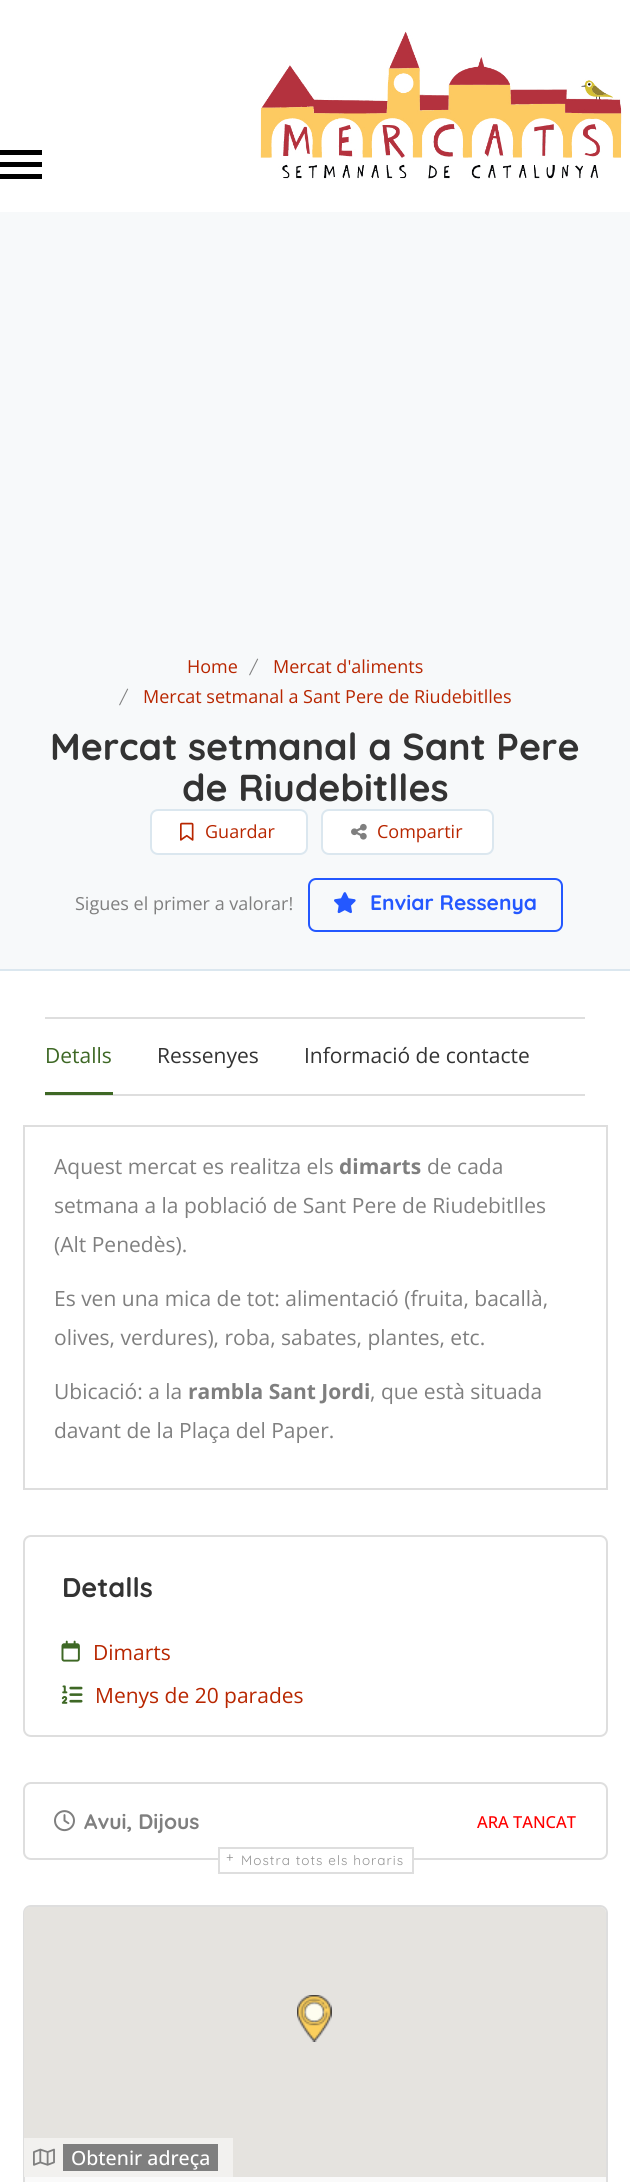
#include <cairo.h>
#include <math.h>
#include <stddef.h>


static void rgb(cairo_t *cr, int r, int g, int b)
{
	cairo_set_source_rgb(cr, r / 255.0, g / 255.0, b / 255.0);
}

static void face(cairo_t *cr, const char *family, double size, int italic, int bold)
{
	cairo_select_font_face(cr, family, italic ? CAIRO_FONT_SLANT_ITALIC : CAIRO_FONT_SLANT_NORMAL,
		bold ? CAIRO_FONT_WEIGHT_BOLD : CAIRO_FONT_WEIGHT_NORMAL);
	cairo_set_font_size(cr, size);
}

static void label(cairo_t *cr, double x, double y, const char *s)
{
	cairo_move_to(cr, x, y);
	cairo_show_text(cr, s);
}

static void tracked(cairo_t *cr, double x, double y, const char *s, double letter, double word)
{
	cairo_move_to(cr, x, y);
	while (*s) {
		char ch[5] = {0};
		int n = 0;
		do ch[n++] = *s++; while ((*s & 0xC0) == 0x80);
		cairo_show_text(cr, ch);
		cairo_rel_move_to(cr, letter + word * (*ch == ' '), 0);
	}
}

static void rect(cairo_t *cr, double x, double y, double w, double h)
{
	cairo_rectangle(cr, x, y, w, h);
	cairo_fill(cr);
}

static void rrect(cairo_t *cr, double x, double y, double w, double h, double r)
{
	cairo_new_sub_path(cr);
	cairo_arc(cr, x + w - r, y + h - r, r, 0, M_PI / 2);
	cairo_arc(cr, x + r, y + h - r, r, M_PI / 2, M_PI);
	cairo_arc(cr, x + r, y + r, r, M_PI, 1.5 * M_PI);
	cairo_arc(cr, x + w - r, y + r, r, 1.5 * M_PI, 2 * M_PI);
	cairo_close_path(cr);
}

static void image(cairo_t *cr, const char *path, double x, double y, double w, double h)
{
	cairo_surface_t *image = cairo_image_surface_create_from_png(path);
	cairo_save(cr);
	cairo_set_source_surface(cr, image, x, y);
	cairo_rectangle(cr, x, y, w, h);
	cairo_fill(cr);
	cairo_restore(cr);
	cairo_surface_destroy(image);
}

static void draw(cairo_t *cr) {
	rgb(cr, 255, 255, 255);
	cairo_paint(cr);
	rgb(cr, 0, 0, 0);
	rect(cr, 0, 150, 42, 5);
	rect(cr, 0, 162, 42, 5);
	rect(cr, 0, 174, 42, 5);
	image(cr, "image0.png", 260, 31, 362, 148);
	rgb(cr, 247, 249, 250);
	rect(cr, 0, 212, 630, 757);
	rgb(cr, 219, 231, 239);
	rect(cr, 0, 969, 630, 2);
	face(cr, "Open Sans", 18, 0, 0);
	rgb(cr, 184, 38, 0);
	label(cr, 187, 673, "Home");
	face(cr, "Quicksand", 18, 0, 0);
	rgb(cr, 127, 127, 127);
	label(cr, 249, 673, "/");
	face(cr, "Open Sans", 18, 0, 0);
	rgb(cr, 184, 38, 0);
	label(cr, 273, 673, "Mercat d'aliments");
	face(cr, "Quicksand", 18, 0, 0);
	rgb(cr, 127, 127, 127);
	label(cr, 119, 703, "/");
	face(cr, "Open Sans", 18, 0, 0);
	rgb(cr, 184, 38, 0);
	label(cr, 143, 703, "Mercat setmanal a Sant Pere de Riudebitlles");
	face(cr, "Quicksand", 37.5, 0, 1);
	rgb(cr, 51, 51, 51);
	label(cr, 50, 760, "Mercat setmanal a Sant Pere");
	label(cr, 182, 801, "de Riudebitlles");
	rgb(cr, 255, 255, 255);
	rrect(cr, 151, 810, 156, 44, 7);
	cairo_fill_preserve(cr);
	rgb(cr, 219, 231, 239);
	cairo_stroke(cr);
	image(cr, "image1.png", 180, 822, 14, 19);
	face(cr, "Open Sans", 18, 0, 0);
	rgb(cr, 184, 38, 0);
	label(cr, 205, 838, "Guardar");
	rgb(cr, 255, 255, 255);
	rrect(cr, 322, 810, 171, 44, 7);
	cairo_fill_preserve(cr);
	rgb(cr, 219, 231, 239);
	cairo_stroke(cr);
	image(cr, "image2.png", 351, 823, 16, 17);
	rgb(cr, 184, 38, 0);
	label(cr, 377, 838, "Compartir");
	rgb(cr, 127, 127, 127);
	label(cr, 75, 910, "Sigues el primer a valorar!");
	rrect(cr, 309, 879, 253, 52, 7);
	rgb(cr, 36, 88, 255);
	cairo_stroke(cr);
	image(cr, "image3.png", 334, 892, 22, 22);
	face(cr, "Quicksand", 21, 0, 1);
	label(cr, 370, 910, "Enviar Ressenya");
	rgb(cr, 222, 222, 222);
	rect(cr, 45, 1017, 540, 2);
	rect(cr, 45, 1094, 540, 2);
	face(cr, "Open Sans", 21, 0, 0);
	rgb(cr, 62, 104, 37);
	label(cr, 45, 1063, "Detalls");
	rect(cr, 45, 1092, 68, 3);
	rgb(cr, 51, 51, 51);
	label(cr, 157, 1063, "Ressenyes");
	label(cr, 304, 1063, "Informació de contacte");
	cairo_rectangle(cr, 24, 1126, 583, 363);
	rgb(cr, 222, 222, 222);
	cairo_stroke(cr);
	rgb(cr, 127, 127, 127);
	label(cr, 54, 1174, "Aquest mercat es realitza els");
	face(cr, "Open Sans", 21, 0, 1);
	label(cr, 339, 1174, "dimarts");
	face(cr, "Open Sans", 21, 0, 0);
	label(cr, 427, 1174, "de cada");
	label(cr, 54, 1213, "setmana a la població de Sant Pere de Riudebitlles");
	label(cr, 54, 1252, "(Alt Penedès).");
	label(cr, 54, 1306, "Es ven una mica de tot: alimentació (fruita, bacallà,");
	label(cr, 54, 1345, "olives, verdures), roba, sabates, plantes, etc.");
	label(cr, 54, 1399, "Ubicació: a la");
	face(cr, "Open Sans", 21, 0, 1);
	label(cr, 188, 1399, "rambla Sant Jordi");
	face(cr, "Open Sans", 21, 0, 0);
	label(cr, 370, 1399, ", que està situada");
	label(cr, 54, 1438, "davant de la Plaça del Paper.");
	rrect(cr, 24, 1536, 583, 200, 7);
	rgb(cr, 222, 222, 222);
	cairo_stroke(cr);
	face(cr, "Quicksand", 27, 0, 1);
	rgb(cr, 51, 51, 51);
	label(cr, 62, 1597, "Detalls");
	image(cr, "image4.png", 61, 1640, 19, 22);
	face(cr, "Open Sans", 21, 0, 0);
	rgb(cr, 184, 38, 0);
	label(cr, 93, 1660, "Dimarts");
	image(cr, "image5.png", 61, 1685, 22, 19);
	label(cr, 95, 1703, "Menys de 20 parades");
	rrect(cr, 24, 1783, 583, 76, 7);
	rgb(cr, 222, 222, 222);
	cairo_stroke(cr);
	image(cr, "image6.png", 54, 1810, 21, 22);
	face(cr, "Quicksand", 21, 0, 1);
	rgb(cr, 127, 127, 127);
	label(cr, 84, 1829, "Avui, Dijous");
	face(cr, "Open Sans Medium", 16.5, 0, 0);
	rgb(cr, 255, 0, 0);
	label(cr, 477, 1828, "ARA TANCAT");
	rgb(cr, 255, 255, 255);
	rect(cr, 220, 1858, 192, 2);
	cairo_rectangle(cr, 219, 1848, 194, 25);
	rgb(cr, 222, 222, 222);
	cairo_stroke(cr);
	face(cr, "Quicksand", 13.5, 0, 0);
	rgb(cr, 147, 147, 147);
	tracked(cr, 226, 1862, "+", 1.05, 0);
	tracked(cr, 241, 1865, "Mostra tots els horaris", 1.05, 0);
	rgb(cr, 250, 250, 250);
	rrect(cr, 24, 1906, 583, 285, 7);
	cairo_fill_preserve(cr);
	rgb(cr, 222, 222, 222);
	cairo_stroke(cr);
	rgb(cr, 229, 227, 223);
	cairo_new_path(cr);
	cairo_move_to(cr, 30, 1907);
	cairo_line_to(cr, 600, 1907);
	cairo_curve_to(cr, 603.5, 1907, 606, 1909.5, 606, 1913);
	cairo_line_to(cr, 606, 2177);
	cairo_line_to(cr, 24, 2177);
	cairo_line_to(cr, 24, 1913);
	cairo_curve_to(cr, 24, 1909.5, 26.5, 1907, 30, 1907);
	cairo_close_path(cr);
	cairo_fill(cr);
	image(cr, "image7.png", 297, 1995, 35, 47);
	rgb(cr, 242, 241, 239);
	rect(cr, 24, 2138, 209, 39);
	image(cr, "image8.png", 33, 2148, 22, 18);
	rgb(cr, 127, 127, 127);
	rect(cr, 63, 2144, 155, 27);
	face(cr, "Open Sans Medium", 19.5, 0, 0);
	rgb(cr, 255, 255, 255);
	label(cr, 71, 2165, "Obtenir adreça");
}

int main(void) {
	cairo_surface_t *surface = cairo_image_surface_create(CAIRO_FORMAT_RGB24, 630, 2182);
	cairo_t *cr = cairo_create(surface);
	cairo_font_options_t *options = cairo_font_options_create();
	cairo_font_options_set_hint_metrics(options, CAIRO_HINT_METRICS_OFF);
	cairo_font_options_set_hint_style(options, CAIRO_HINT_STYLE_NONE);
	cairo_set_font_options(cr, options);
	cairo_set_miter_limit(cr, 4);
	draw(cr);
	cairo_surface_write_to_png(surface, "render.png");
	cairo_font_options_destroy(options);
	cairo_destroy(cr);
	cairo_surface_destroy(surface);
	return 0;
}
